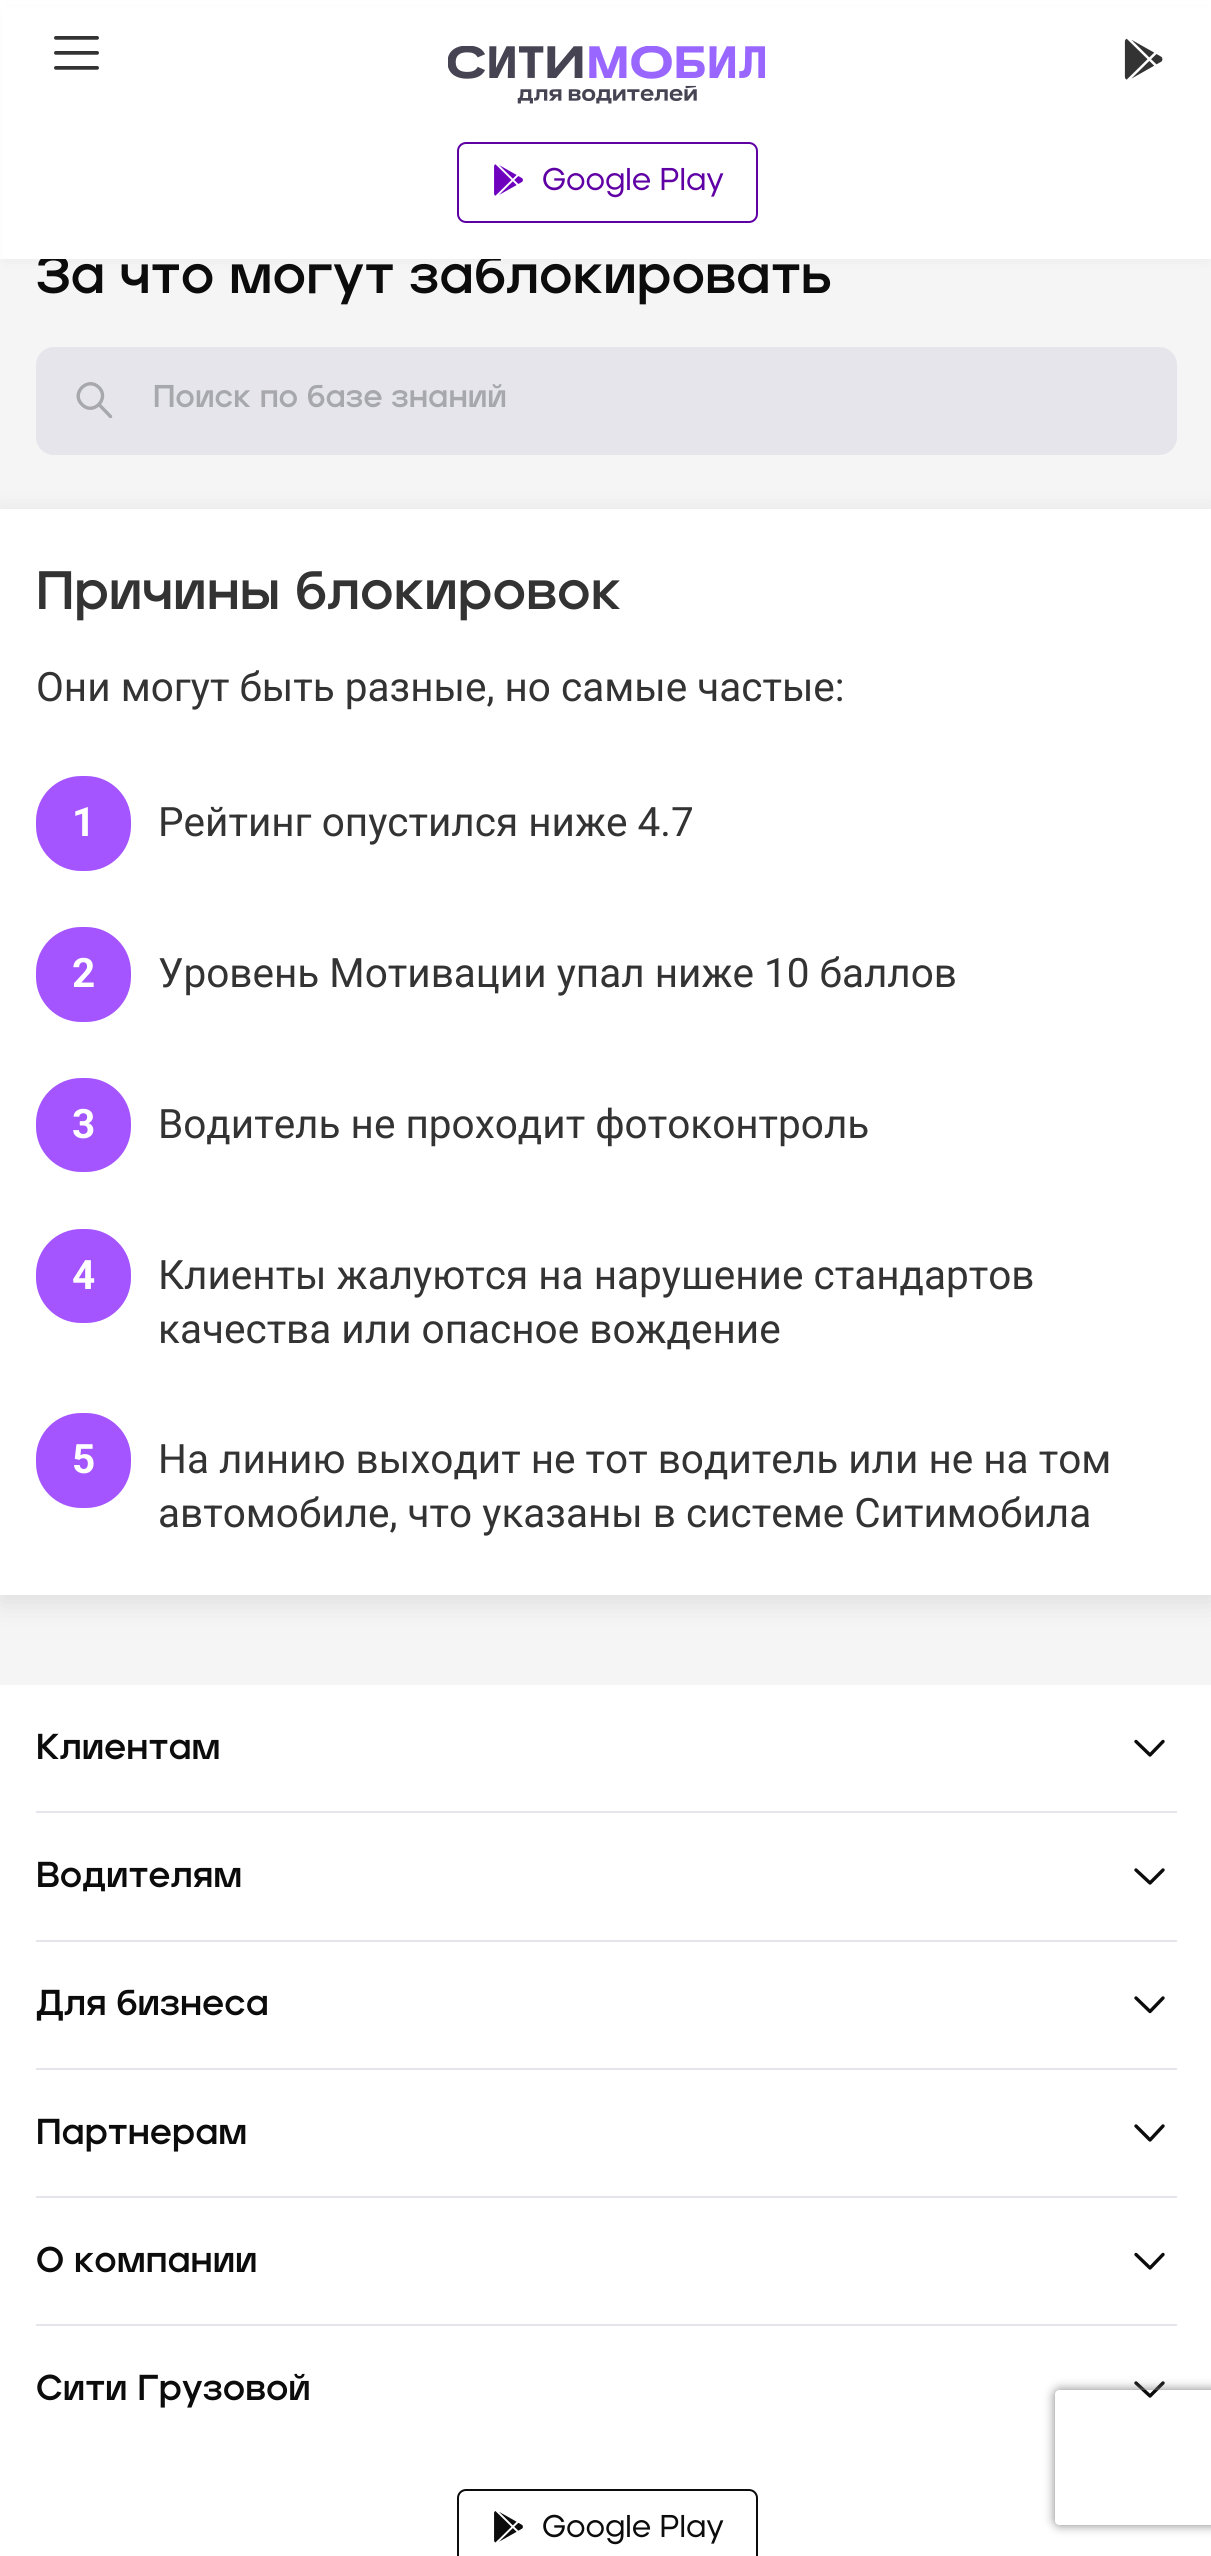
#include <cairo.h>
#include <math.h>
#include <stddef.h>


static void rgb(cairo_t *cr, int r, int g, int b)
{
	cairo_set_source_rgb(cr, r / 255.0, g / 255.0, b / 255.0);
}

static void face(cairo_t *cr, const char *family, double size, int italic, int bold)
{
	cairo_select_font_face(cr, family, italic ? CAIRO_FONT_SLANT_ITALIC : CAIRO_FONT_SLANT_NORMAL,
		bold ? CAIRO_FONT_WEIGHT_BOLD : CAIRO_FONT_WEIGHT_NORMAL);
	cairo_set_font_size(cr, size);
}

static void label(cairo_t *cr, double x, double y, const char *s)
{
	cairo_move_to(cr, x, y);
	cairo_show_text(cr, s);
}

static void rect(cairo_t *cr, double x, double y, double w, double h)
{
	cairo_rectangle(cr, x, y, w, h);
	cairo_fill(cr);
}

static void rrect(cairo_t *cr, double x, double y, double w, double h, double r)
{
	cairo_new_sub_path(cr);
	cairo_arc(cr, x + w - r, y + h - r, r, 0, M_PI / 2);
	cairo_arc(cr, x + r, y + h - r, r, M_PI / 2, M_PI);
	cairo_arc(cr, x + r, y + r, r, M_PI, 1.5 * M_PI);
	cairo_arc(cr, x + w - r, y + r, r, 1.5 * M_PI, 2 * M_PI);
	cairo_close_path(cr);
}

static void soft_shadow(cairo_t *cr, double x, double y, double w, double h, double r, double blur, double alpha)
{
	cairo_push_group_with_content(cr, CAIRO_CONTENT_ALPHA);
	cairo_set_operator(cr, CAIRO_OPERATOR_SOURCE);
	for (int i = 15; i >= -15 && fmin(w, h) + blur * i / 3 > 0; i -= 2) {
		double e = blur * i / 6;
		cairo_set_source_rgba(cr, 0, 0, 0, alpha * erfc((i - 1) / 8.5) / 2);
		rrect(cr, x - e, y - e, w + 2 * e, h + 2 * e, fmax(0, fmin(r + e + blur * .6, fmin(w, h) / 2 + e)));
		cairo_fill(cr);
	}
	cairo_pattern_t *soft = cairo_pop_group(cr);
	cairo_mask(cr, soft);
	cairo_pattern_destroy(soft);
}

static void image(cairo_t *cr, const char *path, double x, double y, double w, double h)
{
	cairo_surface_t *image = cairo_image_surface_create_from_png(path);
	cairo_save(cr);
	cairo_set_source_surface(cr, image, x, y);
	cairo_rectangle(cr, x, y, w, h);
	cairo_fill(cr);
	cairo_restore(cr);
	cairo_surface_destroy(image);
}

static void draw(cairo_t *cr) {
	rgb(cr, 255, 255, 255);
	cairo_paint(cr);
	rgb(cr, 245, 245, 245);
	rect(cr, 0, 259, 1211, 1426);
	rgb(cr, 189, 189, 189);
	soft_shadow(cr, 5, 14, 1203, 249, 0, 4.5, 0.08);
	rgb(cr, 204, 204, 204);
	soft_shadow(cr, 5, 9, 1203, 250, 0, 4.5, 0.12);
	face(cr, "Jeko", 54, 0, 1);
	rgb(cr, 12, 12, 12);
	label(cr, 36, 293, "За что могут заблокировать");
	rgb(cr, 255, 255, 255);
	rect(cr, 2, 7, 1209, 252);
	image(cr, "image0.png", 54, 36, 45, 34);
	image(cr, "image1.png", 448, 46, 317, 58);
	image(cr, "image2.png", 1124, 38, 39, 42);
	rrect(cr, 458, 143, 299, 79, 8);
	rgb(cr, 95, 0, 165);
	cairo_stroke(cr);
	image(cr, "image3.png", 494, 164, 29, 32);
	face(cr, "Jeko Medium", 31.5, 0, 0);
	label(cr, 542, 190, "Google Play");
	rgb(cr, 229, 229, 235);
	rrect(cr, 36, 347, 1141, 108, 18);
	cairo_fill(cr);
	cairo_new_path(cr);
	cairo_move_to(cr, 99, 387.5);
	cairo_curve_to(cr, 110, 398.5, 93, 416, 82, 404.5);
	cairo_curve_to(cr, 70.5, 393.5, 87.5, 376, 99, 387.5);
	cairo_move_to(cr, 99, 404.5);
	cairo_line_to(cr, 110.5, 416.5);
	rgb(cr, 167, 168, 171);
	cairo_set_line_width(cr, 3.4);
	cairo_set_line_cap(cr, CAIRO_LINE_CAP_ROUND);
	cairo_set_line_join(cr, CAIRO_LINE_JOIN_ROUND);
	cairo_stroke(cr);
	face(cr, "Jeko", 31.5, 0, 1);
	label(cr, 153, 407, "Поиск по базе знаний");
	rgb(cr, 0, 0, 0);
	soft_shadow(cr, 0, 515, 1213, 1087, 0, 13.5, 0.1);
	rgb(cr, 255, 255, 255);
	rect(cr, 0, 509, 1211, 1086);
	face(cr, "Jeko", 54, 0, 1);
	rgb(cr, 51, 51, 51);
	label(cr, 36, 609, "Причины блокировок");
	face(cr, "Roboto", 40.5, 0, 0);
	label(cr, 36, 701, "Они могут быть разные, но самые частые:");
	rgb(cr, 165, 85, 255);
	rrect(cr, 36, 776, 95, 95, 45);
	cairo_fill(cr);
	face(cr, "Roboto", 40.5, 0, 1);
	rgb(cr, 255, 255, 255);
	label(cr, 72, 836, "1");
	face(cr, "Roboto", 40.5, 0, 0);
	rgb(cr, 51, 51, 51);
	label(cr, 158, 836, "Рейтинг опустился ниже 4.7");
	rgb(cr, 165, 85, 255);
	rrect(cr, 36, 927, 95, 95, 45);
	cairo_fill(cr);
	face(cr, "Roboto", 40.5, 0, 1);
	rgb(cr, 255, 255, 255);
	label(cr, 72, 987, "2");
	face(cr, "Roboto", 40.5, 0, 0);
	rgb(cr, 51, 51, 51);
	label(cr, 158, 987, "Уровень Мотивации упал ниже 10 баллов");
	rgb(cr, 165, 85, 255);
	rrect(cr, 36, 1078, 95, 94, 45);
	cairo_fill(cr);
	face(cr, "Roboto", 40.5, 0, 1);
	rgb(cr, 255, 255, 255);
	label(cr, 72, 1138, "3");
	face(cr, "Roboto", 40.5, 0, 0);
	rgb(cr, 51, 51, 51);
	label(cr, 158, 1138, "Водитель не проходит фотоконтроль");
	rgb(cr, 165, 85, 255);
	rrect(cr, 36, 1229, 95, 94, 45);
	cairo_fill(cr);
	face(cr, "Roboto", 40.5, 0, 1);
	rgb(cr, 255, 255, 255);
	label(cr, 72, 1289, "4");
	face(cr, "Roboto", 40.5, 0, 0);
	rgb(cr, 51, 51, 51);
	label(cr, 158, 1289, "Клиенты жалуются на нарушение стандартов");
	label(cr, 158, 1343, "качества или опасное вождение");
	rgb(cr, 165, 85, 255);
	rrect(cr, 36, 1413, 95, 95, 45);
	cairo_fill(cr);
	face(cr, "Roboto", 40.5, 0, 1);
	rgb(cr, 255, 255, 255);
	label(cr, 72, 1473, "5");
	face(cr, "Roboto", 40.5, 0, 0);
	rgb(cr, 51, 51, 51);
	label(cr, 158, 1473, "На линию выходит не тот водитель или не на том");
	label(cr, 158, 1527, "автомобиле, что указаны в системе Ситимобила");
	face(cr, "Jeko", 36, 0, 1);
	rgb(cr, 12, 12, 12);
	label(cr, 36, 1759, "Клиентам");
	cairo_new_path(cr);
	cairo_move_to(cr, 1136, 1741.5);
	cairo_line_to(cr, 1150, 1755);
	cairo_line_to(cr, 1163, 1741.5);
	cairo_stroke(cr);
	rgb(cr, 229, 229, 235);
	rect(cr, 36, 1811, 1141, 2);
	rgb(cr, 12, 12, 12);
	label(cr, 36, 1887, "Водителям");
	cairo_new_path(cr);
	cairo_move_to(cr, 1136, 1870);
	cairo_line_to(cr, 1150, 1883);
	cairo_line_to(cr, 1163, 1870);
	cairo_stroke(cr);
	rgb(cr, 229, 229, 235);
	rect(cr, 36, 1940, 1141, 2);
	rgb(cr, 12, 12, 12);
	label(cr, 36, 2015, "Для бизнеса");
	cairo_new_path(cr);
	cairo_move_to(cr, 1136, 1998);
	cairo_line_to(cr, 1150, 2011.5);
	cairo_line_to(cr, 1163, 1998);
	cairo_stroke(cr);
	rgb(cr, 229, 229, 235);
	rect(cr, 36, 2068, 1141, 2);
	rgb(cr, 12, 12, 12);
	label(cr, 36, 2144, "Партнерам");
	cairo_new_path(cr);
	cairo_move_to(cr, 1136, 2126);
	cairo_line_to(cr, 1150, 2140);
	cairo_line_to(cr, 1163, 2126);
	cairo_stroke(cr);
	rgb(cr, 229, 229, 235);
	rect(cr, 36, 2196, 1141, 2);
	rgb(cr, 12, 12, 12);
	label(cr, 36, 2272, "О компании");
	cairo_new_path(cr);
	cairo_move_to(cr, 1136, 2254.5);
	cairo_line_to(cr, 1150, 2268);
	cairo_line_to(cr, 1163, 2254.5);
	cairo_stroke(cr);
	rgb(cr, 229, 229, 235);
	rect(cr, 36, 2324, 1141, 2);
	rgb(cr, 12, 12, 12);
	label(cr, 36, 2400, "Сити Грузовой");
	cairo_new_path(cr);
	cairo_move_to(cr, 1136, 2383);
	cairo_line_to(cr, 1150, 2396);
	cairo_line_to(cr, 1163, 2383);
	cairo_stroke(cr);
	rrect(cr, 458, 2490, 299, 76, 8);
	cairo_set_line_width(cr, 2);
	cairo_set_line_cap(cr, CAIRO_LINE_CAP_BUTT);
	cairo_set_line_join(cr, CAIRO_LINE_JOIN_MITER);
	cairo_stroke(cr);
	image(cr, "image4.png", 494, 2511, 29, 32);
	face(cr, "Jeko Medium", 31.5, 0, 0);
	label(cr, 542, 2537, "Google Play");
	cairo_save(cr);
	cairo_set_fill_rule(cr, CAIRO_FILL_RULE_EVEN_ODD);
	cairo_new_path(cr);
	cairo_move_to(cr, 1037, 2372);
	cairo_line_to(cr, 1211, 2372);
	cairo_line_to(cr, 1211, 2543);
	cairo_line_to(cr, 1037, 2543);
	cairo_close_path(cr);
	cairo_move_to(cr, 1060, 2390);
	cairo_line_to(cr, 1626, 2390);
	cairo_curve_to(cr, 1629, 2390, 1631, 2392, 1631, 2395);
	cairo_line_to(cr, 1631, 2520);
	cairo_curve_to(cr, 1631, 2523, 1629, 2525, 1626, 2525);
	cairo_line_to(cr, 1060, 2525);
	cairo_curve_to(cr, 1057, 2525, 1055, 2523, 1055, 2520);
	cairo_line_to(cr, 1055, 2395);
	cairo_curve_to(cr, 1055, 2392, 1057, 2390, 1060, 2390);
	cairo_close_path(cr);
	cairo_clip(cr);
	rgb(cr, 128, 128, 128);
	soft_shadow(cr, 1055, 2390, 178, 135, 5, 5.5, 1);
	cairo_restore(cr);
}

int main(void) {
	cairo_surface_t *surface = cairo_image_surface_create(CAIRO_FORMAT_RGB24, 1211, 2556);
	cairo_t *cr = cairo_create(surface);
	cairo_font_options_t *options = cairo_font_options_create();
	cairo_font_options_set_hint_metrics(options, CAIRO_HINT_METRICS_OFF);
	cairo_font_options_set_hint_style(options, CAIRO_HINT_STYLE_NONE);
	cairo_set_font_options(cr, options);
	cairo_set_miter_limit(cr, 4);
	draw(cr);
	cairo_surface_write_to_png(surface, "render.png");
	cairo_font_options_destroy(options);
	cairo_destroy(cr);
	cairo_surface_destroy(surface);
	return 0;
}
